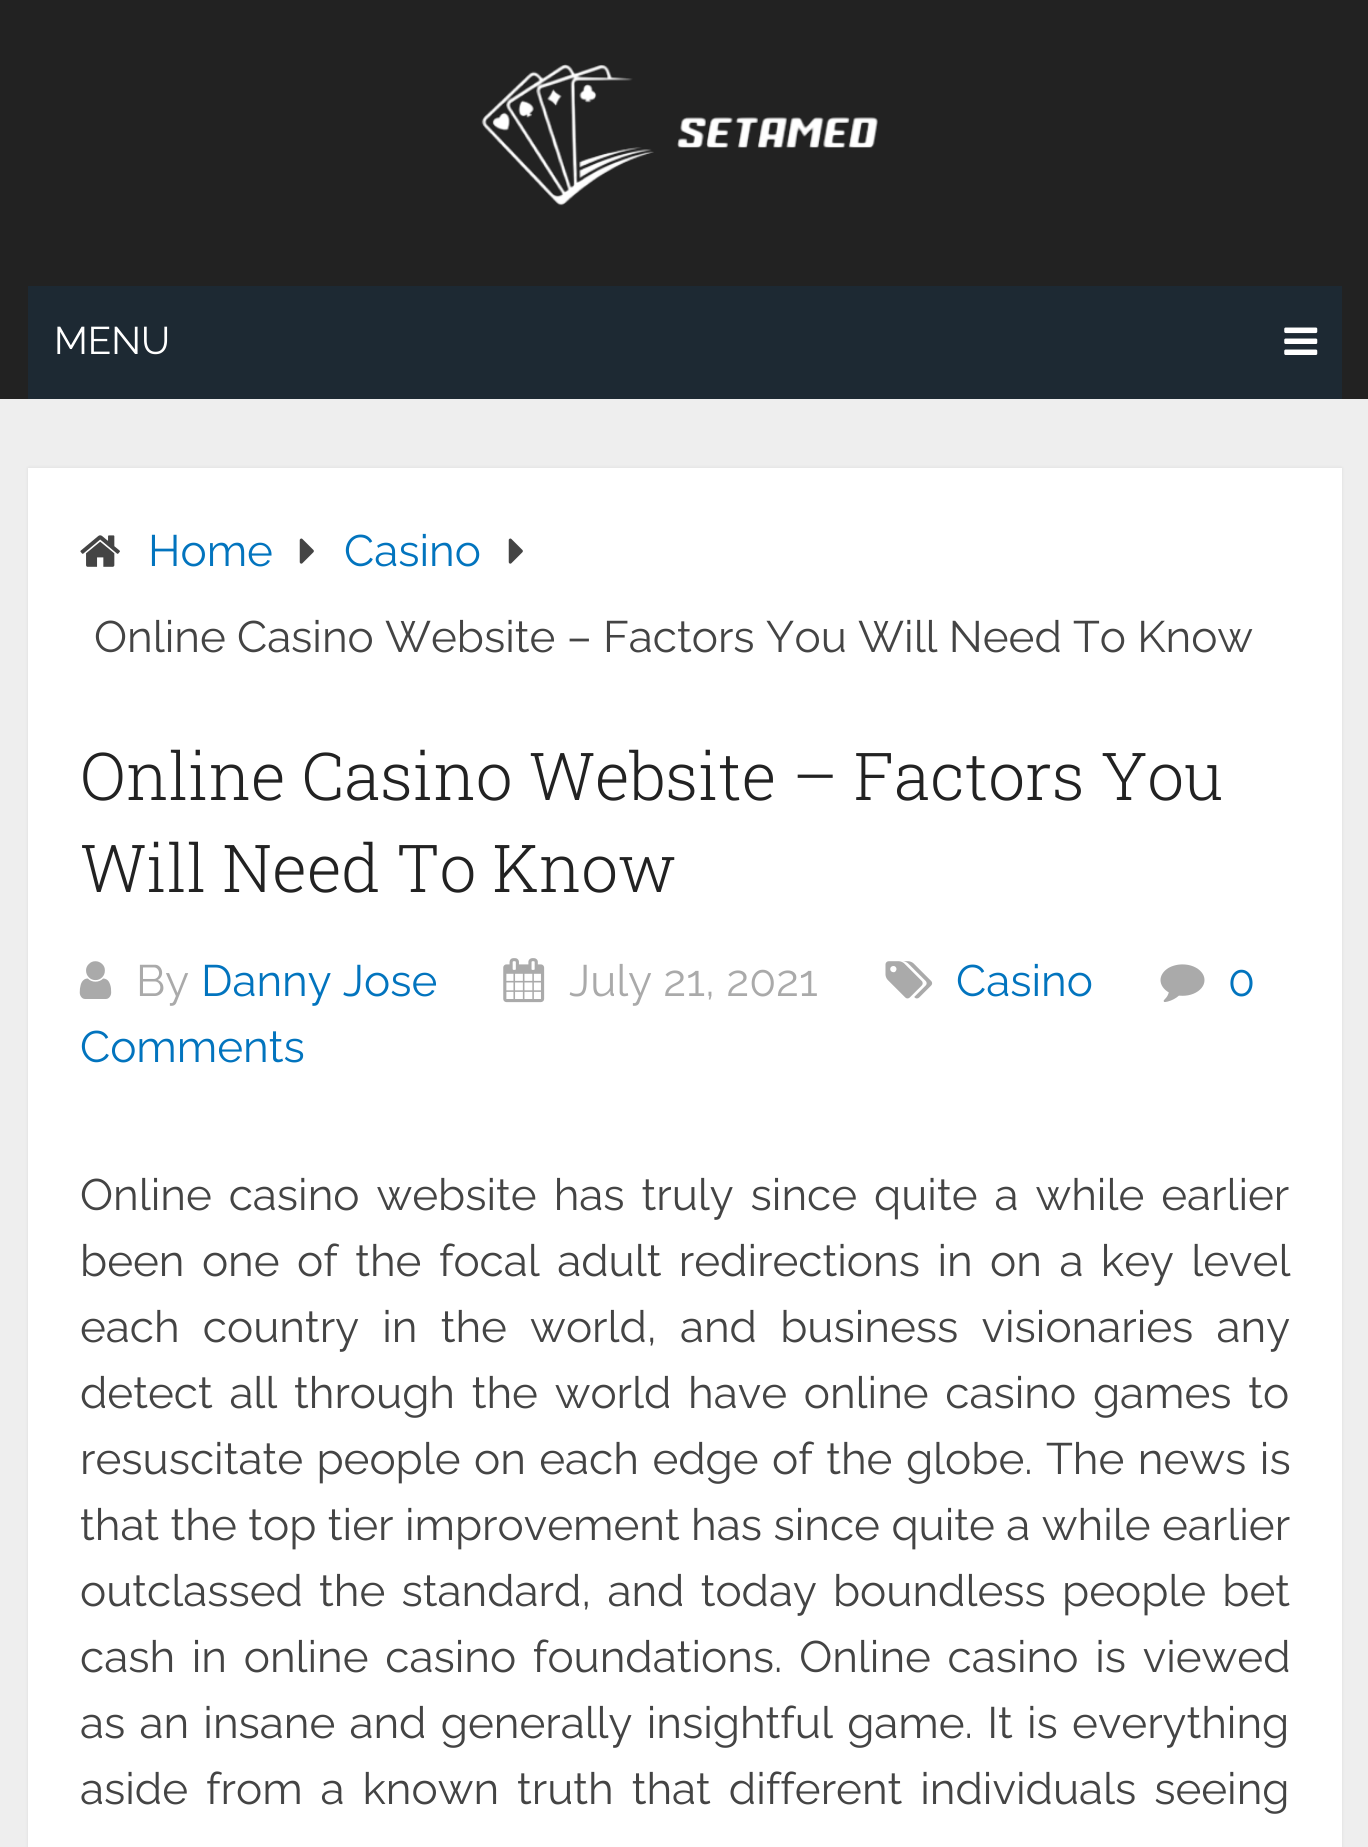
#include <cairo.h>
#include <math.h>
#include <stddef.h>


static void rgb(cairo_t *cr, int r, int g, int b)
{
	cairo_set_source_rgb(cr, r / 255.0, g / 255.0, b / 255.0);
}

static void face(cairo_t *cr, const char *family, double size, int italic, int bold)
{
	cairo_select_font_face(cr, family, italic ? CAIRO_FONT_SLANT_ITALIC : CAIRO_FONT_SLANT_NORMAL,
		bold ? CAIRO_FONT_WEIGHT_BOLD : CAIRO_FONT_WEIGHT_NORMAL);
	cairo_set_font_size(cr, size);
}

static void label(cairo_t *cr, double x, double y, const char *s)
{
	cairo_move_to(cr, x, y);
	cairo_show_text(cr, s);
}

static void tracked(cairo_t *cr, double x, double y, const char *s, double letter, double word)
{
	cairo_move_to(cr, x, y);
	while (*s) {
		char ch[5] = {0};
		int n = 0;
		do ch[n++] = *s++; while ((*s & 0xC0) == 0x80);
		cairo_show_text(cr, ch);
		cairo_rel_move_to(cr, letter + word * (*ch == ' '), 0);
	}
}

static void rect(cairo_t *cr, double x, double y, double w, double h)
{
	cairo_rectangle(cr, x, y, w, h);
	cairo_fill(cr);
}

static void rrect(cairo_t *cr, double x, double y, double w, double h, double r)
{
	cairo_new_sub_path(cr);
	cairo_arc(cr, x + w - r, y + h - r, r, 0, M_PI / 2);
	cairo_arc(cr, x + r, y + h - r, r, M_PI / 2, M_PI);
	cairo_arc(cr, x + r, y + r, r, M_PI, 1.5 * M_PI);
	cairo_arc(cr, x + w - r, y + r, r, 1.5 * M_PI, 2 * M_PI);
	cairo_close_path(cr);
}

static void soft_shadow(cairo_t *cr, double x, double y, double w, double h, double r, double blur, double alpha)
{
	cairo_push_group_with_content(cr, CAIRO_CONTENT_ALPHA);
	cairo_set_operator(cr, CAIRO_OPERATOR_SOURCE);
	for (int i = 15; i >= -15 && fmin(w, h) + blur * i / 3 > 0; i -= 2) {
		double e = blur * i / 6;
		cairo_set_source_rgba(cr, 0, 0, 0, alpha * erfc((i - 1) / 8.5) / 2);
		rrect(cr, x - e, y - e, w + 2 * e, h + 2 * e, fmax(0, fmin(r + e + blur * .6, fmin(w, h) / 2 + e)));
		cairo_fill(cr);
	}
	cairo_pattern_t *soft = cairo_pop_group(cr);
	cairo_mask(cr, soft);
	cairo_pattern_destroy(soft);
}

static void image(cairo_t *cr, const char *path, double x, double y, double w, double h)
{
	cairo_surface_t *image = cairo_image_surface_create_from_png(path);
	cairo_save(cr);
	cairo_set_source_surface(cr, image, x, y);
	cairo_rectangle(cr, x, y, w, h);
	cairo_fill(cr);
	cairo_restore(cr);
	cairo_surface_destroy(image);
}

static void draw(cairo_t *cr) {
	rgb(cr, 238, 238, 238);
	cairo_paint(cr);
	rgb(cr, 34, 34, 34);
	rect(cr, 0, 0, 1368, 399);
	image(cr, "image0.png", 481, 64, 397, 142);
	rgb(cr, 29, 41, 51);
	rect(cr, 28, 286, 1314, 113);
	face(cr, "Raleway", 38.5, 0, 0);
	rgb(cr, 255, 255, 255);
	label(cr, 54, 354, "MENU");
	image(cr, "image1.png", 1284, 327, 34, 28);
	rgb(cr, 50, 50, 50);
	soft_shadow(cr, 28, 468, 1314, 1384, 0, 1.5, 0.1);
	rgb(cr, 255, 255, 255);
	rect(cr, 28, 468, 1314, 1379);
	image(cr, "image2.png", 80, 535, 40, 32);
	face(cr, "Raleway", 44, 0, 0);
	rgb(cr, 2, 116, 190);
	label(cr, 148, 566, "Home");
	image(cr, "image3.png", 299, 538, 15, 26);
	label(cr, 344, 566, "Casino");
	image(cr, "image3.png", 508, 538, 15, 26);
	rgb(cr, 68, 68, 68);
	label(cr, 94, 652, "Online Casino Website – Factors You Will Need To Know");
	face(cr, "Roboto Slab Light", 66, 0, 0);
	rgb(cr, 34, 34, 34);
	label(cr, 80, 800, "Online Casino Website – Factors You");
	label(cr, 80, 892, "Will Need To Know");
	image(cr, "image4.png", 79, 961, 33, 38);
	face(cr, "Raleway", 44, 0, 0);
	rgb(cr, 170, 170, 170);
	label(cr, 136, 996, "By");
	rgb(cr, 2, 116, 190);
	label(cr, 201, 996, "Danny Jose");
	image(cr, "image5.png", 503, 958, 42, 45);
	rgb(cr, 170, 170, 170);
	label(cr, 569, 996, "July 21, 2021");
	image(cr, "image6.png", 885, 961, 48, 38);
	rgb(cr, 2, 116, 190);
	label(cr, 956, 996, "Casino");
	image(cr, "image7.png", 1160, 964, 45, 38);
	label(cr, 1228, 996, "0");
	label(cr, 80, 1062, "Comments");
	rgb(cr, 68, 68, 68);
	tracked(cr, 80, 1210, "Online casino website has truly since quite a while earlier", 0, 5.75);
	tracked(cr, 80, 1276, "been one of the focal adult redirections in on a key level", 0, 6.25);
	tracked(cr, 80, 1342, "each country in the world, and business visionaries any", 0, 12);
	tracked(cr, 80, 1408, "detect all through the world have online casino games to", 0, 5.5);
	tracked(cr, 80, 1474, "resuscitate people on each edge of the globe. The news is", 0, 2.25);
	tracked(cr, 80, 1540, "that the top tier improvement has since quite a while earlier", 0, 0.25);
	tracked(cr, 80, 1606, "outclassed the standard, and today boundless people bet", 0, 5);
	tracked(cr, 80, 1672, "cash in online casino foundations. Online casino is viewed", 0, 5.5);
	tracked(cr, 80, 1738, "as an insane and generally insightful game. It is everything", 0, 3);
	tracked(cr, 80, 1804, "aside from a known truth that different individuals seeing", 0, 6.75);
}

int main(void) {
	cairo_surface_t *surface = cairo_image_surface_create(CAIRO_FORMAT_RGB24, 1368, 1847);
	cairo_t *cr = cairo_create(surface);
	cairo_font_options_t *options = cairo_font_options_create();
	cairo_font_options_set_hint_metrics(options, CAIRO_HINT_METRICS_OFF);
	cairo_font_options_set_hint_style(options, CAIRO_HINT_STYLE_NONE);
	cairo_set_font_options(cr, options);
	cairo_set_miter_limit(cr, 4);
	draw(cr);
	cairo_surface_write_to_png(surface, "render.png");
	cairo_font_options_destroy(options);
	cairo_destroy(cr);
	cairo_surface_destroy(surface);
	return 0;
}
